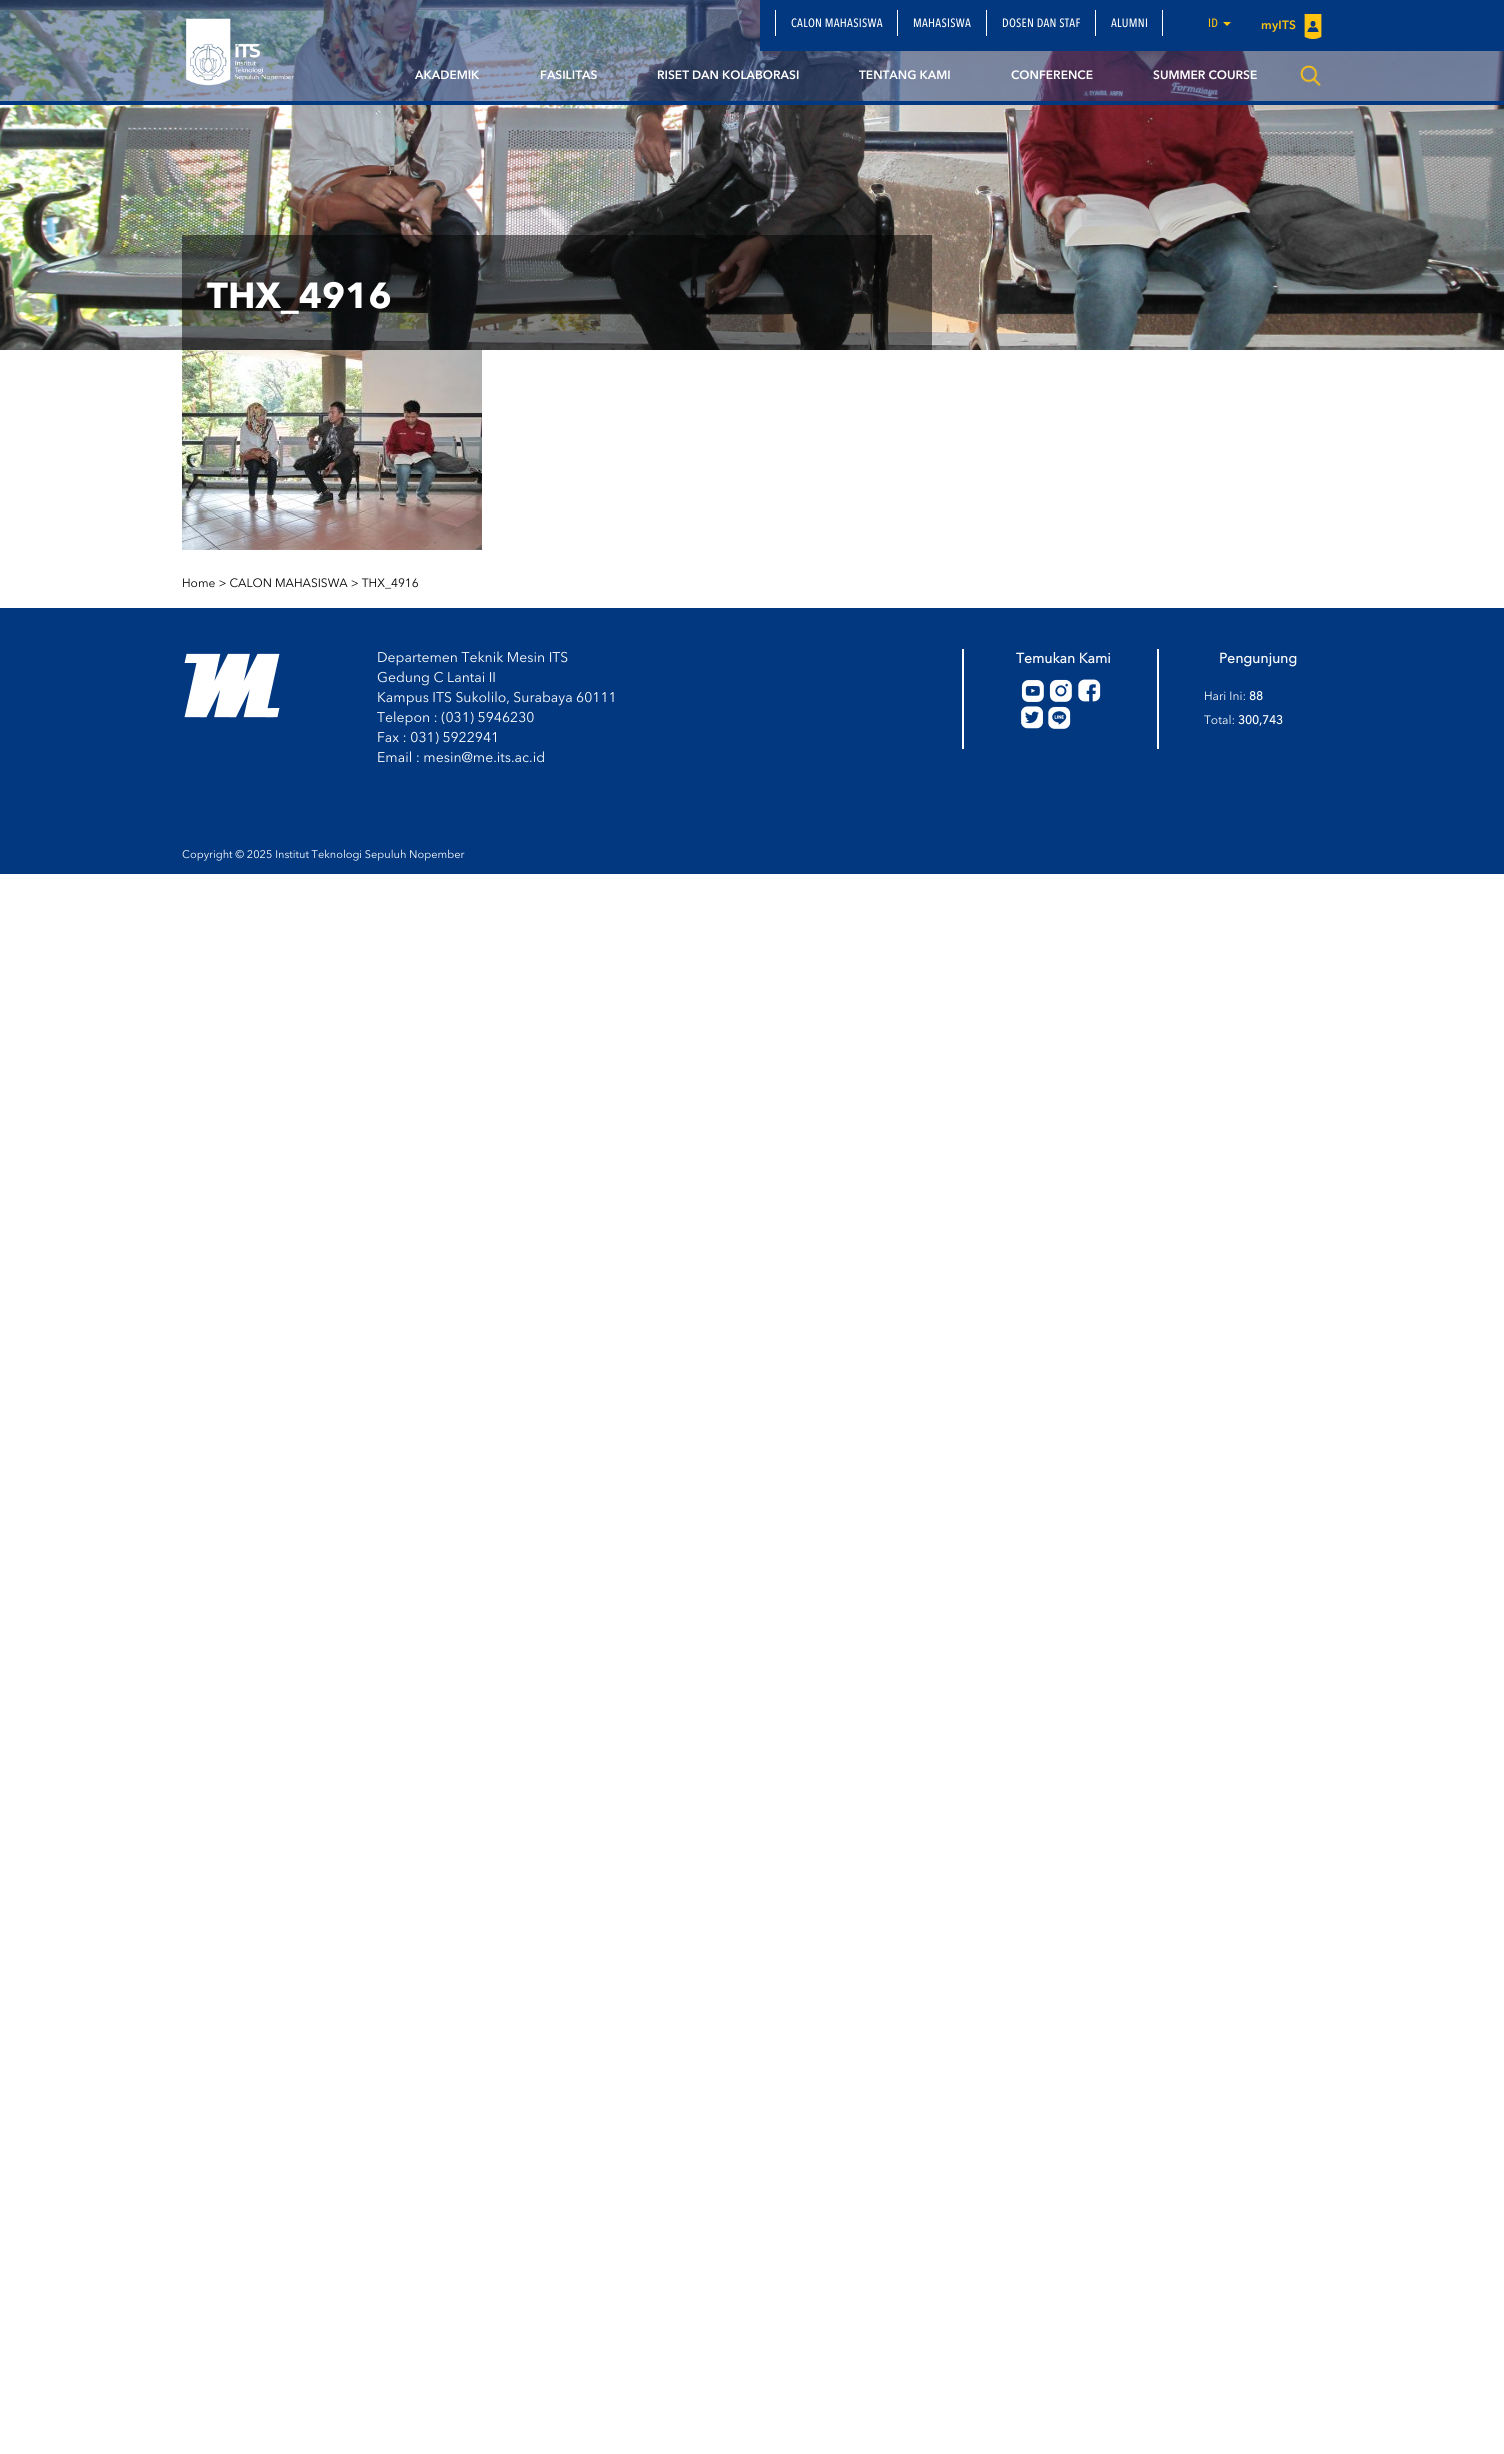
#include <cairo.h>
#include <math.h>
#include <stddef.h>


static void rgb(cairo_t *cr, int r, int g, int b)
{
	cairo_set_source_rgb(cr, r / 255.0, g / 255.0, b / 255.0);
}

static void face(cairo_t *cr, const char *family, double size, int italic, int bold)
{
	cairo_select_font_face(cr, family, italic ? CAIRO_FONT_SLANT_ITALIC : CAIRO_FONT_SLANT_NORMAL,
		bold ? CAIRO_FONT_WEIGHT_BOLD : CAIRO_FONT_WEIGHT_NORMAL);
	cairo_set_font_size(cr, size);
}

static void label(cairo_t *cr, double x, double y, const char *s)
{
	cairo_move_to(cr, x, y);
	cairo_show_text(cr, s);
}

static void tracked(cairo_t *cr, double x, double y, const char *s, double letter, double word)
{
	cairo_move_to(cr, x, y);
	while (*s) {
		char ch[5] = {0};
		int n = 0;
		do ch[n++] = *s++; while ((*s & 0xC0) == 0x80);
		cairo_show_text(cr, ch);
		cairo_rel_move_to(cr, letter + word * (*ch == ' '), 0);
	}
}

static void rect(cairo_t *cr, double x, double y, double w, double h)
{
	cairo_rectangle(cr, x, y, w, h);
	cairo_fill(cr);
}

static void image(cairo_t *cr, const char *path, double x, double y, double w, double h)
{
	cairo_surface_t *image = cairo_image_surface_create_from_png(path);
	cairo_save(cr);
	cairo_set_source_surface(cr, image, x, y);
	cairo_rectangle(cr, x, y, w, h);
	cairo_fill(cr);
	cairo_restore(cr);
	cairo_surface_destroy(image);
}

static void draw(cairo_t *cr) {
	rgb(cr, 255, 255, 255);
	cairo_paint(cr);
	image(cr, "image3.png", 0, 0, 1504, 350);
	cairo_set_source_rgba(cr, 0.125, 0.255, 0.498, 0.5);
	rect(cr, 0, 0, 1504, 101);
	rgb(cr, 1, 56, 128);
	rect(cr, 0, 101, 1504, 4);
	image(cr, "image0.png", 186, 18, 108, 68);
	rect(cr, 760, 0, 744, 51);
	rgb(cr, 255, 255, 255);
	rect(cr, 897, 10, 1, 26);
	rect(cr, 775, 10, 1, 26);
	face(cr, "Avenir Next Medium", 12, 0, 0);
	tracked(cr, 791, 27, "CALON MAHASISWA", 0.25, 0);
	rect(cr, 986, 10, 1, 26);
	tracked(cr, 913, 27, "MAHASISWA", 0.25, 0);
	rect(cr, 1095, 10, 1, 26);
	tracked(cr, 1002, 27, "DOSEN DAN STAF", 0.25, 0);
	rect(cr, 1162, 10, 1, 26);
	tracked(cr, 1111, 27, "ALUMNI", 0.25, 0);
	rgb(cr, 255, 196, 16);
	tracked(cr, 1208, 27, "ID", 0.25, 0);
	cairo_new_path(cr);
	cairo_move_to(cr, 1223, 22);
	cairo_line_to(cr, 1231, 22);
	cairo_line_to(cr, 1227, 26);
	cairo_close_path(cr);
	cairo_fill(cr);
	face(cr, "Avenir Next SemiBold", 12, 0, 0);
	tracked(cr, 1261, 29, "myITS", 0.25, 0);
	image(cr, "image1.png", 1304, 14, 18, 25);
	rgb(cr, 255, 255, 255);
	label(cr, 415, 79, "AKADEMIK");
	label(cr, 540, 79, "FASILITAS");
	label(cr, 657, 79, "RISET DAN KOLABORASI");
	label(cr, 859, 79, "TENTANG KAMI");
	label(cr, 1011, 79, "CONFERENCE");
	label(cr, 1153, 79, "SUMMER COURSE");
	image(cr, "image2.png", 1300, 65, 21, 22);
	cairo_set_source_rgba(cr, 0, 0, 0, 0.5);
	rect(cr, 182, 235, 750, 115);
	face(cr, "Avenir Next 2", 36, 0, 1);
	rgb(cr, 255, 255, 255);
	label(cr, 207, 308, "THX_4916");
	image(cr, "image4.png", 182, 350, 300, 200);
	face(cr, "Avenir Next", 12, 0, 0);
	rgb(cr, 0, 0, 0);
	label(cr, 182, 587, "Home > CALON MAHASISWA > THX_4916");
	rgb(cr, 1, 56, 128);
	rect(cr, 0, 608, 1504, 266);
	image(cr, "image5.png", 184, 653, 96, 65);
	face(cr, "Avenir Next", 14, 0, 0);
	rgb(cr, 255, 255, 255);
	label(cr, 377, 662, "Departemen Teknik Mesin ITS");
	label(cr, 377, 682, "Gedung C Lantai II");
	label(cr, 377, 702, "Kampus ITS Sukolilo, Surabaya 60111");
	label(cr, 377, 722, "Telepon : (031) 5946230");
	label(cr, 377, 742, "Fax : 031) 5922941");
	label(cr, 377, 762, "Email : mesin@me.its.ac.id");
	rect(cr, 962, 649, 2, 100);
	face(cr, "Avenir Next", 14, 0, 1);
	label(cr, 1016, 663, "Temukan Kami");
	image(cr, "image6.png", 1021, 680, 23, 22);
	image(cr, "image7.png", 1049, 679, 23, 23);
	image(cr, "image8.png", 1078, 679, 23, 23);
	image(cr, "image9.png", 1021, 706, 22, 23);
	image(cr, "image10.png", 1048, 706, 23, 23);
	rect(cr, 1157, 649, 2, 100);
	label(cr, 1219, 663, "Pengunjung");
	face(cr, "Avenir Next", 12, 0, 0);
	label(cr, 1204, 700, "Hari Ini:");
	face(cr, "Avenir Next", 12, 0, 1);
	label(cr, 1249, 700, "88");
	face(cr, "Avenir Next", 12, 0, 0);
	label(cr, 1204, 724, "Total:");
	face(cr, "Avenir Next", 12, 0, 1);
	label(cr, 1238, 724, "300,743");
	face(cr, "Avenir Next", 11, 0, 0);
	label(cr, 182, 858, "Copyright © 2025 Institut Teknologi Sepuluh Nopember");
}

int main(void) {
	cairo_surface_t *surface = cairo_image_surface_create(CAIRO_FORMAT_RGB24, 1504, 2454);
	cairo_t *cr = cairo_create(surface);
	cairo_font_options_t *options = cairo_font_options_create();
	cairo_font_options_set_hint_metrics(options, CAIRO_HINT_METRICS_OFF);
	cairo_font_options_set_hint_style(options, CAIRO_HINT_STYLE_NONE);
	cairo_set_font_options(cr, options);
	cairo_set_miter_limit(cr, 4);
	draw(cr);
	cairo_surface_write_to_png(surface, "render.png");
	cairo_font_options_destroy(options);
	cairo_destroy(cr);
	cairo_surface_destroy(surface);
	return 0;
}
